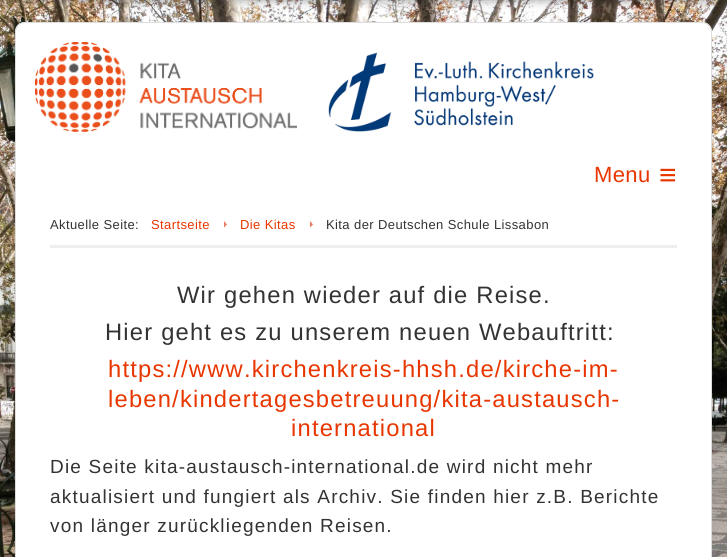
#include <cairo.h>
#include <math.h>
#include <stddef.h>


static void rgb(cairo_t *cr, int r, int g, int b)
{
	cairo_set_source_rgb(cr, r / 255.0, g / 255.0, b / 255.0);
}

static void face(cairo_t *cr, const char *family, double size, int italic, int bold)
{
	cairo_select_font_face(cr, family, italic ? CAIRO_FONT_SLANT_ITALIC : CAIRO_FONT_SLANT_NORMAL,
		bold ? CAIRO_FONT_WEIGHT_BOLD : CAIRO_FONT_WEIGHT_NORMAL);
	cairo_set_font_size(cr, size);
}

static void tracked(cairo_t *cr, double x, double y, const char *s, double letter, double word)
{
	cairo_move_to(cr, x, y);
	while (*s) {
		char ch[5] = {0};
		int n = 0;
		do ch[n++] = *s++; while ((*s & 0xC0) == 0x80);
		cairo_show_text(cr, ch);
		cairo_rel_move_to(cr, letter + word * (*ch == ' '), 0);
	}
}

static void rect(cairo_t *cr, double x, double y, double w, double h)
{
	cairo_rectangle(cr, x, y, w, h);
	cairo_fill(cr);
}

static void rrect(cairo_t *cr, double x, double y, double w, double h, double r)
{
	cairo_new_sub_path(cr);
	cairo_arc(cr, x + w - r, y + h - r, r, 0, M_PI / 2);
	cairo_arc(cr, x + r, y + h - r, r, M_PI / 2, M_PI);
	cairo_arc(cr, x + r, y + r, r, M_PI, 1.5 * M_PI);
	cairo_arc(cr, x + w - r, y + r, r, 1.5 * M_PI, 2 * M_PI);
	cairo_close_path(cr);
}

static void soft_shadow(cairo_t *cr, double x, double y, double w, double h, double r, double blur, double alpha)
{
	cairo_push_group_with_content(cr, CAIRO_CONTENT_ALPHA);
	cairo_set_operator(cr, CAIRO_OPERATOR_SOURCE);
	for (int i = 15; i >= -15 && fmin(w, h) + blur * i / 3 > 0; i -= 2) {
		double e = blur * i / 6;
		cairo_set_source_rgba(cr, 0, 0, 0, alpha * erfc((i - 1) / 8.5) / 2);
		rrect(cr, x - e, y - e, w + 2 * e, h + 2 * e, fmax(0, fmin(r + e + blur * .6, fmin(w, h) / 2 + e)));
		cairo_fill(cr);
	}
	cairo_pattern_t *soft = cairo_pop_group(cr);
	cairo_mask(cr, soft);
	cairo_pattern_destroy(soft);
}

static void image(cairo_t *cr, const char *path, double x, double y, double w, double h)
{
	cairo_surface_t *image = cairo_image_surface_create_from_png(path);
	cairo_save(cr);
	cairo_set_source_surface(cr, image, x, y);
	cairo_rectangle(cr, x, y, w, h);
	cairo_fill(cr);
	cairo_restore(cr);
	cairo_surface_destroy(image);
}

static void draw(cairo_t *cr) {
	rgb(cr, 255, 255, 255);
	cairo_paint(cr);
	image(cr, "image0.png", 0, 0, 727, 557);
	rgb(cr, 50, 50, 50);
	soft_shadow(cr, 0, -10, 727, 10, 0, 5, 0.5);
	rgb(cr, 255, 255, 255);
	cairo_new_path(cr);
	cairo_move_to(cr, 25, 22);
	cairo_line_to(cr, 702, 22);
	cairo_curve_to(cr, 707.5, 22, 712, 26.5, 712, 32);
	cairo_line_to(cr, 712, 146);
	cairo_line_to(cr, 15, 146);
	cairo_line_to(cr, 15, 32);
	cairo_curve_to(cr, 15, 26.5, 19.5, 22, 25, 22);
	cairo_close_path(cr);
	cairo_fill(cr);
	rgb(cr, 221, 221, 221);
	cairo_set_fill_rule(cr, CAIRO_FILL_RULE_EVEN_ODD);
	cairo_new_path(cr);
	cairo_move_to(cr, 25, 22);
	cairo_line_to(cr, 702, 22);
	cairo_curve_to(cr, 708, 22, 712, 26, 712, 32);
	cairo_line_to(cr, 712, 146);
	cairo_line_to(cr, 15, 146);
	cairo_line_to(cr, 15, 32);
	cairo_curve_to(cr, 15, 26, 19, 22, 25, 22);
	cairo_close_path(cr);
	cairo_move_to(cr, 25, 23);
	cairo_line_to(cr, 702, 23);
	cairo_curve_to(cr, 707, 23, 711, 27, 711, 32);
	cairo_line_to(cr, 711, 146);
	cairo_line_to(cr, 16, 146);
	cairo_line_to(cr, 16, 32);
	cairo_curve_to(cr, 16, 27, 20, 23, 25, 23);
	cairo_close_path(cr);
	cairo_fill(cr);
	image(cr, "image1.png", 35, 42, 262, 90);
	image(cr, "image2.png", 328, 52, 266, 80);
	rgb(cr, 255, 255, 255);
	rect(cr, 16, 146, 695, 411);
	rgb(cr, 221, 221, 221);
	rect(cr, 711, 146, 1, 411);
	rect(cr, 15, 146, 1, 411);
	face(cr, "Liberation Sans", 22, 0, 0);
	rgb(cr, 232, 54, 0);
	tracked(cr, 594, 182, "Menu", 0.4, 0);
	face(cr, "Liberation Sans", 30, 0, 0);
	tracked(cr, 659, 185, "≡", 0.4, 0);
	rgb(cr, 238, 238, 238);
	rect(cr, 50, 245, 627, 3);
	face(cr, "Liberation Sans", 13, 0, 0);
	rgb(cr, 51, 51, 51);
	tracked(cr, 50, 229, "Aktuelle Seite:", 0.4, 0);
	rgb(cr, 232, 54, 0);
	tracked(cr, 151, 229, "Startseite", 0.4, 0);
	rgb(cr, 231, 125, 96);
	cairo_set_fill_rule(cr, CAIRO_FILL_RULE_WINDING);
	cairo_new_path(cr);
	cairo_move_to(cr, 224, 227.5);
	cairo_line_to(cr, 224, 221);
	cairo_line_to(cr, 227, 224.5);
	cairo_close_path(cr);
	cairo_fill(cr);
	rgb(cr, 232, 54, 0);
	tracked(cr, 240, 229, "Die Kitas", 0.4, 0);
	rgb(cr, 231, 125, 96);
	cairo_new_path(cr);
	cairo_move_to(cr, 310, 227.5);
	cairo_line_to(cr, 310, 221);
	cairo_line_to(cr, 313, 224.5);
	cairo_close_path(cr);
	cairo_fill(cr);
	rgb(cr, 51, 51, 51);
	tracked(cr, 326, 229, "Kita der Deutschen Schule Lissabon", 0.4, 0);
	face(cr, "Liberation Sans", 23.75, 0, 0);
	tracked(cr, 177, 303, "Wir gehen wieder auf die Reise.", 1.2, 0);
	tracked(cr, 105, 340, "Hier geht es zu unserem neuen Webauftritt:", 1.2, 0);
	rgb(cr, 232, 54, 0);
	tracked(cr, 108, 377, "https://www.kirchenkreis-hhsh.de/kirche-im-", 1.2, 0);
	tracked(cr, 108, 407, "leben/kindertagesbetreuung/kita-austausch-", 1.2, 0);
	tracked(cr, 291, 436, "international", 1.2, 0);
	face(cr, "Liberation Sans", 19, 0, 0);
	rgb(cr, 51, 51, 51);
	tracked(cr, 50, 473, "Die Seite kita-austausch-international.de wird nicht mehr", 1.2, 0);
	tracked(cr, 50, 503, "aktualisiert und fungiert als Archiv. Sie finden hier z.B. Berichte", 1.2, 0);
	tracked(cr, 50, 532, "von länger zurückliegenden Reisen.", 1.2, 0);
}

int main(void) {
	cairo_surface_t *surface = cairo_image_surface_create(CAIRO_FORMAT_RGB24, 727, 557);
	cairo_t *cr = cairo_create(surface);
	cairo_font_options_t *options = cairo_font_options_create();
	cairo_font_options_set_hint_metrics(options, CAIRO_HINT_METRICS_OFF);
	cairo_font_options_set_hint_style(options, CAIRO_HINT_STYLE_NONE);
	cairo_set_font_options(cr, options);
	cairo_set_miter_limit(cr, 4);
	draw(cr);
	cairo_surface_write_to_png(surface, "render.png");
	cairo_font_options_destroy(options);
	cairo_destroy(cr);
	cairo_surface_destroy(surface);
	return 0;
}
